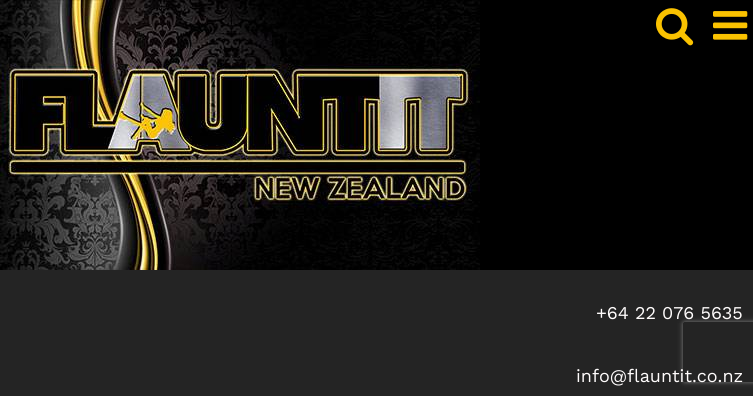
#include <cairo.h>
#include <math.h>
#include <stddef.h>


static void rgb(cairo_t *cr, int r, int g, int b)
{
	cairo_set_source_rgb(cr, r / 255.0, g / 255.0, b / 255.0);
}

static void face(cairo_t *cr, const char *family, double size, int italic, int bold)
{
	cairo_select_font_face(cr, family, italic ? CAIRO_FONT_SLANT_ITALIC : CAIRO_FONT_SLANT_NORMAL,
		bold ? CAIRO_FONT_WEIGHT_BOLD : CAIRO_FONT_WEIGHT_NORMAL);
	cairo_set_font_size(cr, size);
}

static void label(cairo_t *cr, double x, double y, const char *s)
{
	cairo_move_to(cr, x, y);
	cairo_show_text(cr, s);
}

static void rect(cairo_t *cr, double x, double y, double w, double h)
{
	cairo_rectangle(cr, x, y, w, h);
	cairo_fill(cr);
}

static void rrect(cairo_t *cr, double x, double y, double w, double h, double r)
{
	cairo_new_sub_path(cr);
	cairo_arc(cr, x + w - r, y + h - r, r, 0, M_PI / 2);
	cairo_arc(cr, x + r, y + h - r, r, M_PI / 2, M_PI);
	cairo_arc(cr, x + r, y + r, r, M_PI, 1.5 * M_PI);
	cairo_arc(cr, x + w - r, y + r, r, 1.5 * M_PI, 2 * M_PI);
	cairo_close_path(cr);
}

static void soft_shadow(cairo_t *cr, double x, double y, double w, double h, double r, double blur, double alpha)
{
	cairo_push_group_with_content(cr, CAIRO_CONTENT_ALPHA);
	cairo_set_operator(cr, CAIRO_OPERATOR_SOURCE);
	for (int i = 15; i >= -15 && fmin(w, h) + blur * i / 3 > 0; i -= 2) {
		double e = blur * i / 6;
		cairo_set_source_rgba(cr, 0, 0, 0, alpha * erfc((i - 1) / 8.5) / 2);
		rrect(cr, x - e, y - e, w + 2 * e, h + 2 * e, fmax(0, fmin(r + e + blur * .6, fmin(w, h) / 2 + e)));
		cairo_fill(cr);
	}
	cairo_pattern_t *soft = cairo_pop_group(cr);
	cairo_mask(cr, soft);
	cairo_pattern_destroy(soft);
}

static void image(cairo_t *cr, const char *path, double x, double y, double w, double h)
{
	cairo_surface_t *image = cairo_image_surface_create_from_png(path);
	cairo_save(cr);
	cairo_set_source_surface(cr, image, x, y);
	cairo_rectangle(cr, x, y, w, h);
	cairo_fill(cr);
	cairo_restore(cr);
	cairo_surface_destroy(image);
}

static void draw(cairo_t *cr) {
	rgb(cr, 36, 36, 36);
	cairo_paint(cr);
	rgb(cr, 0, 0, 0);
	rect(cr, 480, 0, 273, 270);
	image(cr, "image0.png", 0, 0, 480, 270);
	image(cr, "image1.png", 656, 8, 38, 38);
	image(cr, "image2.png", 713, 11, 35, 29);
	cairo_save(cr);
	cairo_set_fill_rule(cr, CAIRO_FILL_RULE_EVEN_ODD);
	cairo_new_path(cr);
	cairo_move_to(cr, 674, 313);
	cairo_line_to(cr, 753, 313);
	cairo_line_to(cr, 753, 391);
	cairo_line_to(cr, 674, 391);
	cairo_close_path(cr);
	cairo_move_to(cr, 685, 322);
	cairo_line_to(cr, 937, 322);
	cairo_curve_to(cr, 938, 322, 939, 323, 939, 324);
	cairo_line_to(cr, 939, 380);
	cairo_curve_to(cr, 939, 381, 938, 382, 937, 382);
	cairo_line_to(cr, 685, 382);
	cairo_curve_to(cr, 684, 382, 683, 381, 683, 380);
	cairo_line_to(cr, 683, 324);
	cairo_curve_to(cr, 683, 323, 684, 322, 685, 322);
	cairo_close_path(cr);
	cairo_clip(cr);
	rgb(cr, 128, 128, 128);
	soft_shadow(cr, 683, 322, 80, 60, 2, 2.5, 1);
	cairo_restore(cr);
	face(cr, "Work Sans", 18, 0, 0);
	rgb(cr, 255, 252, 252);
	label(cr, 596, 319, "+64 22 076 5635");
	label(cr, 576, 382, "info@flauntit.co.nz");
}

int main(void) {
	cairo_surface_t *surface = cairo_image_surface_create(CAIRO_FORMAT_RGB24, 753, 396);
	cairo_t *cr = cairo_create(surface);
	cairo_font_options_t *options = cairo_font_options_create();
	cairo_font_options_set_hint_metrics(options, CAIRO_HINT_METRICS_OFF);
	cairo_font_options_set_hint_style(options, CAIRO_HINT_STYLE_NONE);
	cairo_set_font_options(cr, options);
	cairo_set_miter_limit(cr, 4);
	draw(cr);
	cairo_surface_write_to_png(surface, "render.png");
	cairo_font_options_destroy(options);
	cairo_destroy(cr);
	cairo_surface_destroy(surface);
	return 0;
}
